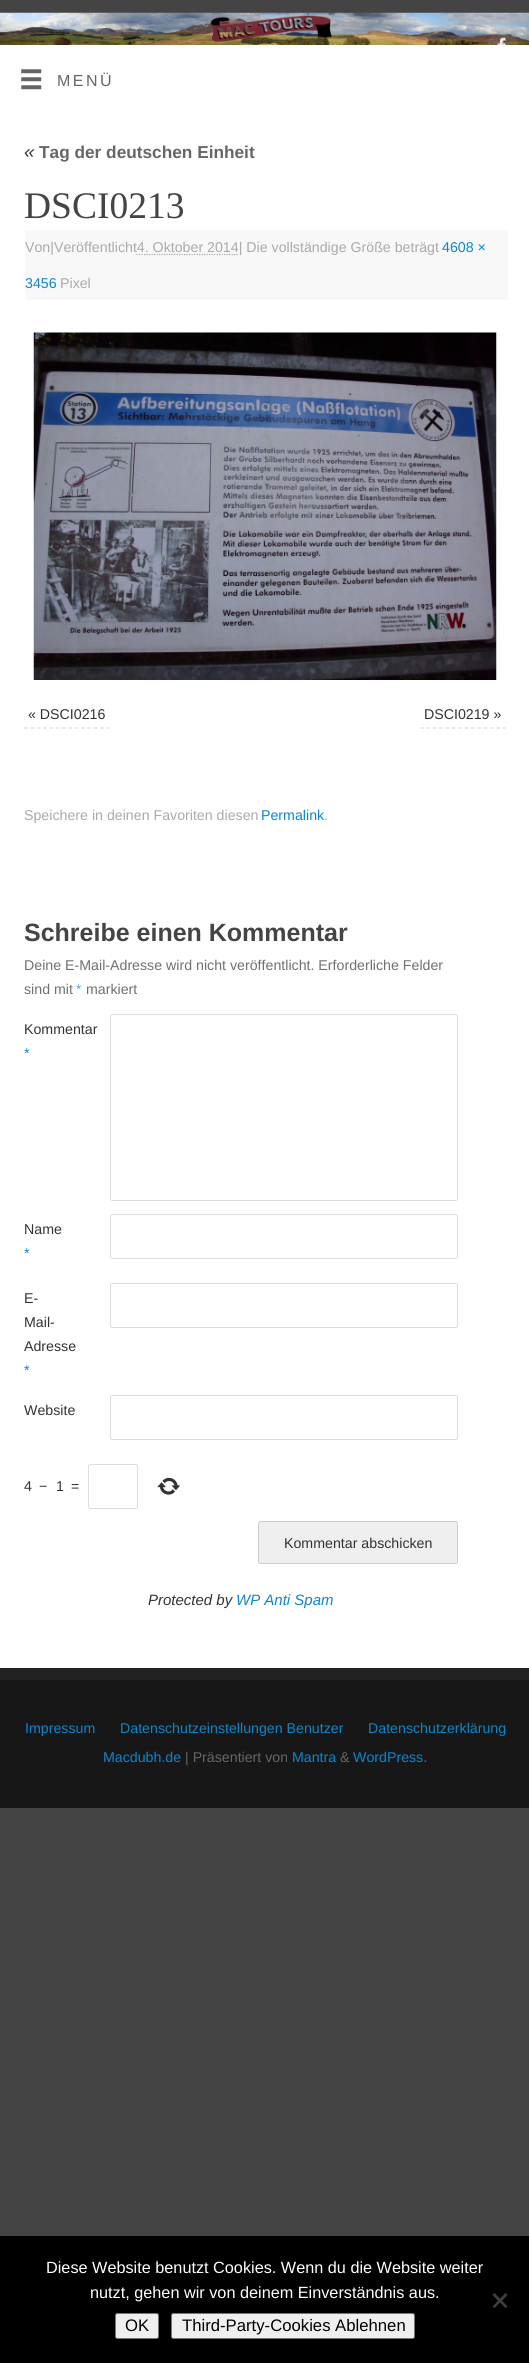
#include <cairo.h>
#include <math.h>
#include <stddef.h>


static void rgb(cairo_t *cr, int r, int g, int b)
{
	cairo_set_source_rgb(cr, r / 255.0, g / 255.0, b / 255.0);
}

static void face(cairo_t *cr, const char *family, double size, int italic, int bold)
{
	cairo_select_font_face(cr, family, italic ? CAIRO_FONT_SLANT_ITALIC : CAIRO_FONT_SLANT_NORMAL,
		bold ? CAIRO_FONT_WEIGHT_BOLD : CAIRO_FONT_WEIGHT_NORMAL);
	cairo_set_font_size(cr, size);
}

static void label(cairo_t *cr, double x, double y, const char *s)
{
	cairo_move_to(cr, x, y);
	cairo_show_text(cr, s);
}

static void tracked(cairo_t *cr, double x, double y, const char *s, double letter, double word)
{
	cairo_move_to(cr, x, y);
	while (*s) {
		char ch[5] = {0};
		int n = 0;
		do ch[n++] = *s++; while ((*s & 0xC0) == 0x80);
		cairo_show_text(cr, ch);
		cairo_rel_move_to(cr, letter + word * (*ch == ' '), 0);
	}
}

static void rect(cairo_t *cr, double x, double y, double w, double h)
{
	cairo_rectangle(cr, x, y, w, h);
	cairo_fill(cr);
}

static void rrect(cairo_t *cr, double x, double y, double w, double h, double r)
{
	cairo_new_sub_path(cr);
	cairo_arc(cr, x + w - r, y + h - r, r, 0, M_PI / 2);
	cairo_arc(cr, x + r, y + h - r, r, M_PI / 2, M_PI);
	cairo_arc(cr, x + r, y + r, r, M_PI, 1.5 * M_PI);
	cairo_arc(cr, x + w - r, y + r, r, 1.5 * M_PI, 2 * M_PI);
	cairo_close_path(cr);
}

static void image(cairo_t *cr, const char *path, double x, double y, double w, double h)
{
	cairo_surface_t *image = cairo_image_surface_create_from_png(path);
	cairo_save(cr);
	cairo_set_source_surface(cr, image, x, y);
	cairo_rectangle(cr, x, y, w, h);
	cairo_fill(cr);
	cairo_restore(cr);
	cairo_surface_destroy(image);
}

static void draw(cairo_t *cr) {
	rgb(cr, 68, 68, 68);
	cairo_paint(cr);
	image(cr, "image0.png", 0, 12, 529, 33);
	cairo_set_source_rgba(cr, 1, 1, 1, 0.1);
	cairo_new_path(cr);
	cairo_move_to(cr, 503, 31);
	cairo_curve_to(cr, 511.5, 31, 518, 37.5, 518, 46);
	cairo_line_to(cr, 518, 45);
	cairo_line_to(cr, 488, 45);
	cairo_line_to(cr, 488, 46);
	cairo_curve_to(cr, 488, 37.5, 494.5, 31, 503, 31);
	cairo_close_path(cr);
	cairo_fill(cr);
	image(cr, "image1.png", 497, 37, 10, 8);
	rgb(cr, 255, 255, 255);
	rect(cr, 0, 45, 529, 1623);
	image(cr, "image2.png", 21, 69, 21, 21);
	face(cr, "Liberation Sans", 16, 0, 0);
	rgb(cr, 102, 102, 102);
	tracked(cr, 57, 86, "MENÜ", 2.5, 0);
	face(cr, "Liberation Sans", 19, 1, 0);
	rgb(cr, 51, 51, 51);
	label(cr, 24, 158, "«");
	face(cr, "Liberation Sans", 17.25, 0, 1);
	rgb(cr, 102, 102, 102);
	label(cr, 39, 158, "Tag der deutschen Einheit");
	face(cr, "Liberation Serif", 37.5, 0, 0);
	rgb(cr, 68, 68, 68);
	label(cr, 24, 218, "DSCI0213");
	rgb(cr, 248, 248, 248);
	rect(cr, 25, 230, 483, 70);
	face(cr, "Liberation Sans", 14.2, 0, 0);
	rgb(cr, 170, 170, 170);
	label(cr, 25, 252, "Von|Veröffentlicht4. Oktober 2014| Die vollständige Größe beträgt");
	rgb(cr, 13, 133, 204);
	label(cr, 442, 252, "4608 ×");
	cairo_new_path(cr);
	cairo_move_to(cr, 136.5, 254.5);
	cairo_line_to(cr, 238, 254.5);
	rgb(cr, 170, 170, 170);
	cairo_set_line_width(cr, 1.2);
	cairo_set_dash(cr, (double[]){1.25, 1.25}, 2, 0);
	cairo_stroke(cr);
	rgb(cr, 13, 133, 204);
	label(cr, 25, 288, "3456");
	rgb(cr, 170, 170, 170);
	label(cr, 60, 288, "Pixel");
	image(cr, "image3.png", 33, 332, 464, 348);
	cairo_new_path(cr);
	cairo_move_to(cr, 24, 728);
	cairo_line_to(cr, 110, 728);
	rgb(cr, 221, 221, 221);
	cairo_set_dash(cr, (double[]){3.75, 2.6}, 2, 0);
	cairo_stroke(cr);
	rgb(cr, 51, 51, 51);
	label(cr, 28, 719, "« DSCI0216");
	cairo_new_path(cr);
	cairo_move_to(cr, 420, 728);
	cairo_line_to(cr, 506, 728);
	rgb(cr, 221, 221, 221);
	cairo_stroke(cr);
	rgb(cr, 51, 51, 51);
	label(cr, 424, 719, "DSCI0219 »");
	rgb(cr, 170, 170, 170);
	label(cr, 24, 820, "Speichere in deinen Favoriten diesen");
	rgb(cr, 13, 133, 204);
	label(cr, 261, 820, "Permalink");
	rgb(cr, 170, 170, 170);
	label(cr, 324, 820, ".");
	face(cr, "Liberation Sans", 25, 0, 1);
	rgb(cr, 68, 68, 68);
	label(cr, 24, 941, "Schreibe einen Kommentar");
	face(cr, "Liberation Sans", 14.2, 0, 0);
	rgb(cr, 112, 112, 112);
	label(cr, 24, 970, "Deine E-Mail-Adresse wird nicht veröffentlicht. Erforderliche Felder");
	label(cr, 24, 994, "sind mit");
	rgb(cr, 86, 170, 219);
	label(cr, 76, 994, "*");
	rgb(cr, 112, 112, 112);
	label(cr, 86, 994, "markiert");
	rgb(cr, 51, 51, 51);
	label(cr, 24, 1034, "Kommentar");
	rgb(cr, 13, 133, 204);
	label(cr, 24, 1058, "*");
	rrect(cr, 110.5, 1014.5, 347, 186, 2);
	rgb(cr, 221, 221, 221);
	cairo_set_line_width(cr, 1);
	cairo_set_dash(cr, NULL, 0, 0);
	cairo_stroke(cr);
	rgb(cr, 51, 51, 51);
	label(cr, 24, 1234, "Name");
	rgb(cr, 13, 133, 204);
	label(cr, 24, 1258, "*");
	rrect(cr, 110.5, 1214.5, 347, 44, 2);
	rgb(cr, 221, 221, 221);
	cairo_stroke(cr);
	rgb(cr, 51, 51, 51);
	label(cr, 24, 1303, "E-");
	label(cr, 24, 1327, "Mail-");
	label(cr, 24, 1351, "Adresse");
	rgb(cr, 13, 133, 204);
	label(cr, 24, 1375, "*");
	rrect(cr, 110.5, 1283.5, 347, 44, 2);
	rgb(cr, 221, 221, 221);
	cairo_stroke(cr);
	rgb(cr, 51, 51, 51);
	label(cr, 24, 1415, "Website");
	rrect(cr, 110.5, 1395.5, 347, 44, 2);
	rgb(cr, 221, 221, 221);
	cairo_stroke(cr);
	rgb(cr, 51, 51, 51);
	label(cr, 24, 1491, "4");
	label(cr, 39, 1491, "−");
	label(cr, 56, 1491, "1");
	label(cr, 71, 1491, "=");
	rrect(cr, 88.5, 1464.5, 49, 44, 2);
	rgb(cr, 221, 221, 221);
	cairo_stroke(cr);
	image(cr, "image4.png", 157, 1477, 24, 18);
	rgb(cr, 239, 239, 239);
	rrect(cr, 258.5, 1521.5, 199, 42, 2);
	cairo_fill_preserve(cr);
	rgb(cr, 204, 204, 204);
	cairo_stroke(cr);
	rgb(cr, 51, 51, 51);
	label(cr, 284, 1548, "Kommentar abschicken");
	face(cr, "Liberation Sans", 15, 1, 0);
	label(cr, 148, 1605, "Protected by");
	rgb(cr, 13, 133, 204);
	label(cr, 236, 1605, "WP Anti Spam");
	rgb(cr, 34, 34, 34);
	rect(cr, 0, 1668, 529, 12);
	rgb(cr, 23, 23, 23);
	rect(cr, 0, 1680, 529, 128);
	face(cr, "Liberation Sans", 14.2, 0, 0);
	rgb(cr, 13, 133, 204);
	label(cr, 25, 1733, "Impressum");
	label(cr, 120, 1733, "Datenschutzeinstellungen Benutzer");
	label(cr, 368, 1733, "Datenschutzerklärung");
	label(cr, 103, 1762, "Macdubh.de");
	rgb(cr, 102, 102, 102);
	label(cr, 185, 1762, "| Präsentiert von");
	rgb(cr, 13, 133, 204);
	label(cr, 292, 1762, "Mantra");
	rgb(cr, 102, 102, 102);
	label(cr, 340, 1762, "&");
	rgb(cr, 13, 133, 204);
	label(cr, 353, 1762, "WordPress.");
	rgb(cr, 0, 0, 0);
	rect(cr, 0, 2236, 529, 127);
	face(cr, "Liberation Sans", 16.25, 0, 0);
	rgb(cr, 255, 255, 255);
	label(cr, 46, 2273, "Diese Website benutzt Cookies. Wenn du die Website weiter");
	label(cr, 90, 2298, "nutzt, gehen wir von deinem Einverständnis aus.");
	rgb(cr, 64, 64, 64);
	cairo_new_path(cr);
	cairo_move_to(cr, 505.5, 2293);
	cairo_line_to(cr, 507.5, 2295);
	cairo_line_to(cr, 494.5, 2308);
	cairo_line_to(cr, 492.5, 2306.5);
	cairo_close_path(cr);
	cairo_fill(cr);
	cairo_new_path(cr);
	cairo_move_to(cr, 492.5, 2295);
	cairo_line_to(cr, 494.5, 2293);
	cairo_line_to(cr, 507.5, 2306.5);
	cairo_line_to(cr, 505.5, 2308);
	cairo_close_path(cr);
	cairo_fill(cr);
	rgb(cr, 239, 239, 239);
	rrect(cr, 115.5, 2313.5, 43, 25, 2);
	cairo_fill_preserve(cr);
	rgb(cr, 118, 118, 118);
	cairo_stroke(cr);
	face(cr, "Liberation Sans", 16.7, 0, 0);
	rgb(cr, 0, 0, 0);
	label(cr, 125, 2331, "OK");
	rgb(cr, 239, 239, 239);
	rrect(cr, 171.5, 2313.5, 243, 25, 2);
	cairo_fill_preserve(cr);
	rgb(cr, 118, 118, 118);
	cairo_stroke(cr);
	rgb(cr, 0, 0, 0);
	label(cr, 182, 2331, "Third-Party-Cookies Ablehnen");
}

int main(void) {
	cairo_surface_t *surface = cairo_image_surface_create(CAIRO_FORMAT_RGB24, 529, 2363);
	cairo_t *cr = cairo_create(surface);
	cairo_font_options_t *options = cairo_font_options_create();
	cairo_font_options_set_hint_metrics(options, CAIRO_HINT_METRICS_OFF);
	cairo_font_options_set_hint_style(options, CAIRO_HINT_STYLE_NONE);
	cairo_set_font_options(cr, options);
	cairo_set_miter_limit(cr, 4);
	draw(cr);
	cairo_surface_write_to_png(surface, "render.png");
	cairo_font_options_destroy(options);
	cairo_destroy(cr);
	cairo_surface_destroy(surface);
	return 0;
}
